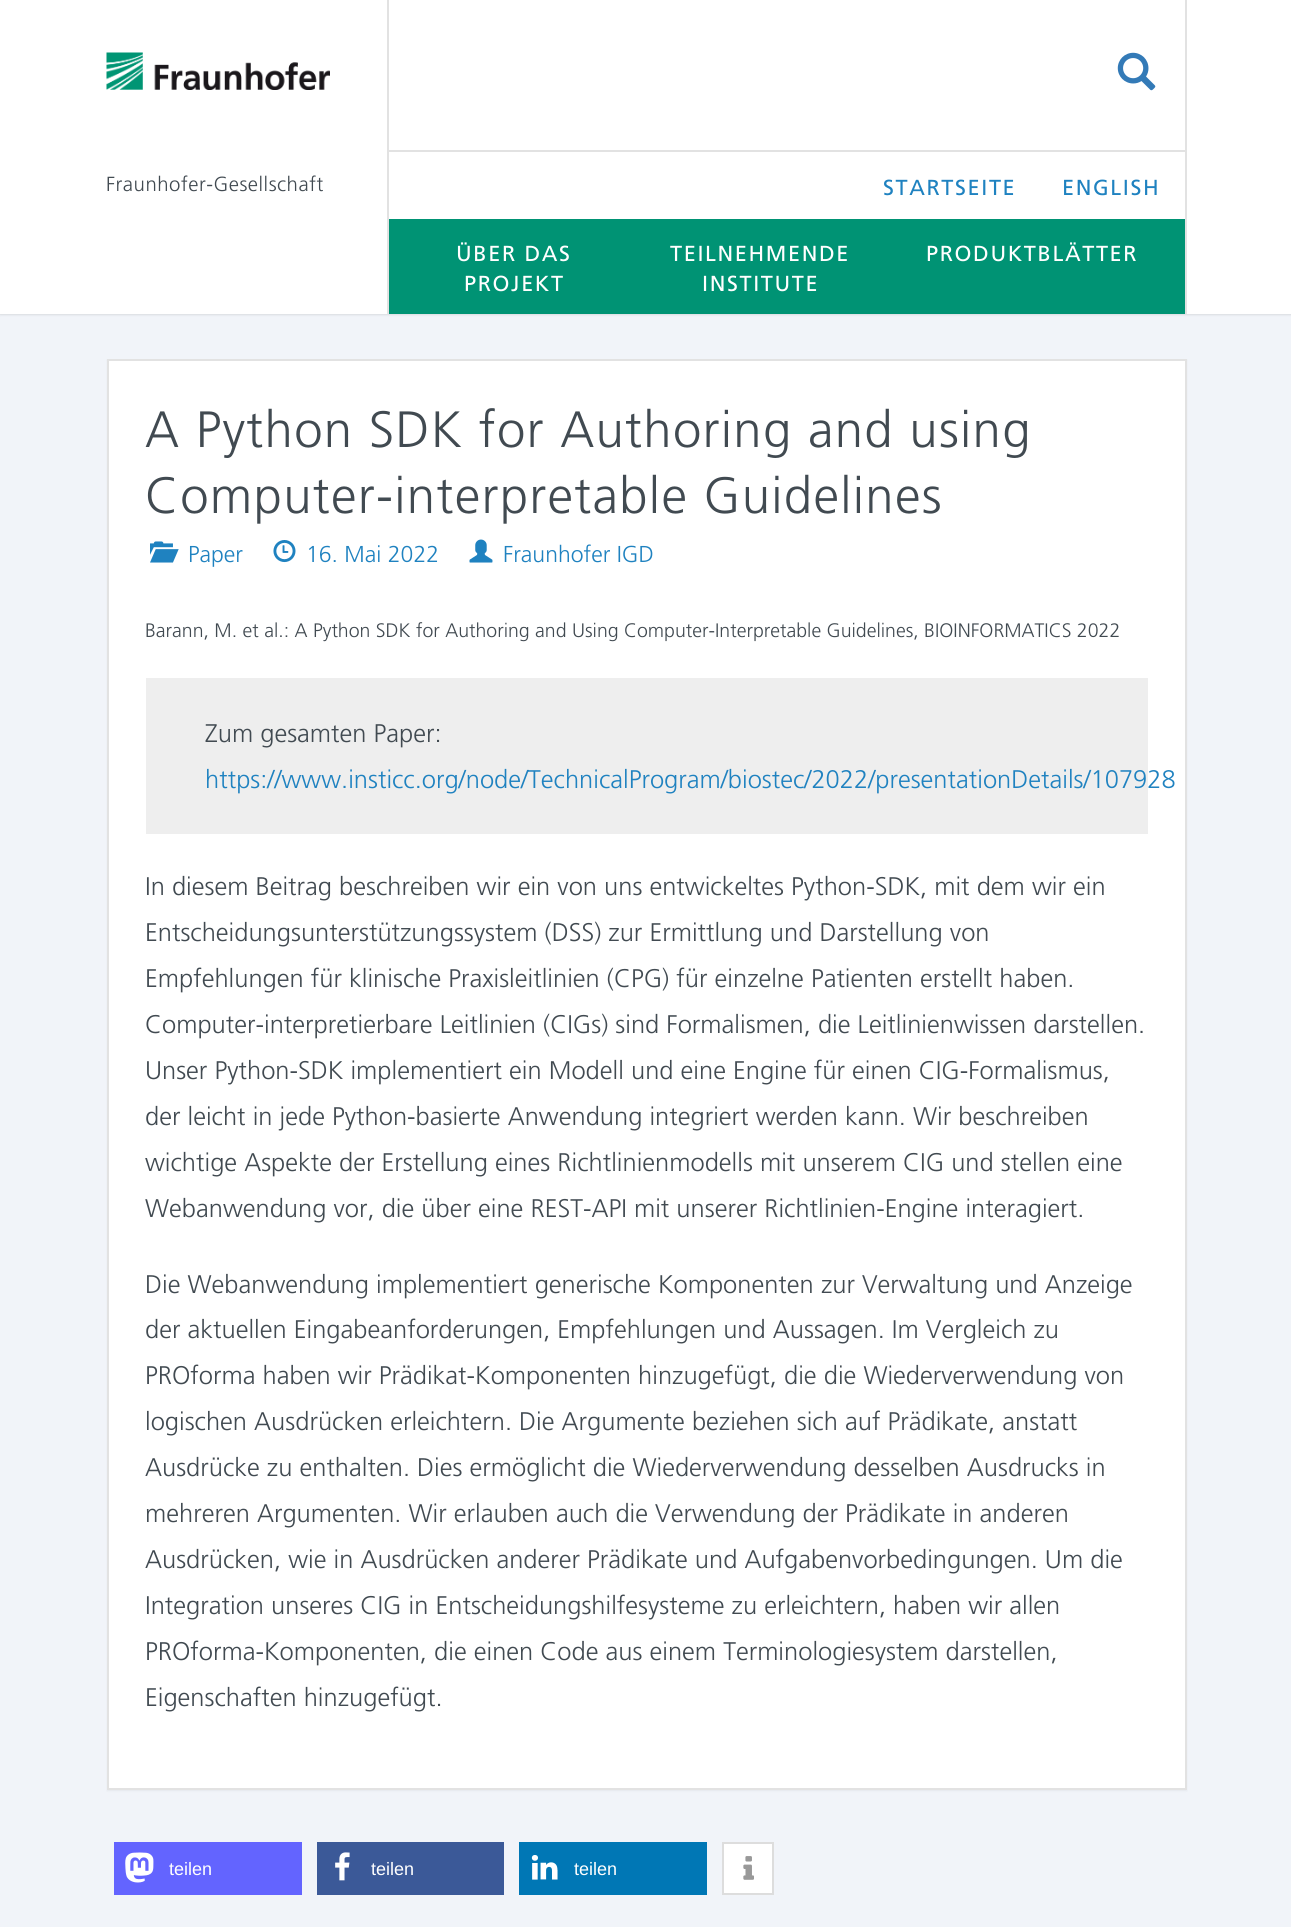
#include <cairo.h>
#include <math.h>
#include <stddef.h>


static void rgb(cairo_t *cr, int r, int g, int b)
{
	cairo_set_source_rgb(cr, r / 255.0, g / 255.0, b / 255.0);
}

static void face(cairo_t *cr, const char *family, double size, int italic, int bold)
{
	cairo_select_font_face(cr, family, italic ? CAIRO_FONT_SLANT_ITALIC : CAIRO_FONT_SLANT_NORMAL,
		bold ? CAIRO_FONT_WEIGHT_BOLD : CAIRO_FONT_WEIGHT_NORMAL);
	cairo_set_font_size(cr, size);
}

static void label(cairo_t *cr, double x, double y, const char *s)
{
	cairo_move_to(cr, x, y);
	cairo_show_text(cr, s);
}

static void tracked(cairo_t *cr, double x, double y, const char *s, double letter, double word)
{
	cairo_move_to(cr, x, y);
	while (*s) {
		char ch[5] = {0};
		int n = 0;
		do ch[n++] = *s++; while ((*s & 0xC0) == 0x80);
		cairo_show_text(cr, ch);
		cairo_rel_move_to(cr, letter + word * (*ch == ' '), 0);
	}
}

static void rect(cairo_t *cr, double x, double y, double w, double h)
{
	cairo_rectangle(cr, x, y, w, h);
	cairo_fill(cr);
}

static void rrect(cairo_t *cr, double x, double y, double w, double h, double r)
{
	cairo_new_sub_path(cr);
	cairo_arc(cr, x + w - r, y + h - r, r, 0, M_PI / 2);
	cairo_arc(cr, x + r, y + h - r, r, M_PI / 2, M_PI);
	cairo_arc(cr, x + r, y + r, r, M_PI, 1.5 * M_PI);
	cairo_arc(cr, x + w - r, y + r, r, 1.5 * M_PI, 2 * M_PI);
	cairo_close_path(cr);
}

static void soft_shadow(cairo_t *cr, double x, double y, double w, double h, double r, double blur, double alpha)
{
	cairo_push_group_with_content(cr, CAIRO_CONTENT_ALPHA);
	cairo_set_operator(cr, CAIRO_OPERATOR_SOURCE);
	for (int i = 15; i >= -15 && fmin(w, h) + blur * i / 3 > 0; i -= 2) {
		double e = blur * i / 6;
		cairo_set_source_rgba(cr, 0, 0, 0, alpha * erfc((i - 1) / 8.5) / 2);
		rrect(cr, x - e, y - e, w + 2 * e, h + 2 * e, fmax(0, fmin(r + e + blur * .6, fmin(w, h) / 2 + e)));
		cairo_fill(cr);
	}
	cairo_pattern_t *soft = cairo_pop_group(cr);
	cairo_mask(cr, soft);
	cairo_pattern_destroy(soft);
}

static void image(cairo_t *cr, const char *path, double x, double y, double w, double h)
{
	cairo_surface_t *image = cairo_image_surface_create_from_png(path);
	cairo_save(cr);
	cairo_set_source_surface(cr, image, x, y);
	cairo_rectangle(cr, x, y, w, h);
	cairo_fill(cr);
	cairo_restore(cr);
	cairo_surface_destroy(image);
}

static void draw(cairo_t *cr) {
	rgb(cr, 241, 244, 249);
	cairo_paint(cr);
	rgb(cr, 0, 0, 0);
	soft_shadow(cr, 0, 2, 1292, 313, 0, 1, 0.1);
	rgb(cr, 255, 255, 255);
	rect(cr, 0, 0, 1291, 314);
	image(cr, "image0.png", 106, 52, 224, 38);
	rgb(cr, 226, 226, 226);
	rect(cr, 1185, 0, 2, 150);
	rect(cr, 387, 0, 2, 150);
	image(cr, "image1.png", 1117, 52, 39, 39);
	face(cr, "Frutiger Light", 20.4, 0, 0);
	rgb(cr, 65, 74, 81);
	tracked(cr, 106, 191, "Fraunhofer-Gesellschaft", 0.5, 0);
	rgb(cr, 226, 226, 226);
	rect(cr, 387, 150, 800, 2);
	rect(cr, 1185, 150, 2, 164);
	rect(cr, 387, 150, 2, 164);
	face(cr, "Frutiger", 21.75, 0, 0);
	rgb(cr, 31, 130, 192);
	tracked(cr, 883, 195, "STARTSEITE", 1.6, 0);
	tracked(cr, 1062, 195, "ENGLISH", 1.6, 0);
	rgb(cr, 0, 147, 116);
	rect(cr, 389, 219, 796, 95);
	rgb(cr, 255, 255, 255);
	tracked(cr, 456, 261, "ÜBER DAS", 1.6, 0);
	tracked(cr, 464, 291, "PROJEKT", 1.6, 0);
	tracked(cr, 670, 261, "TEILNEHMENDE", 1.6, 0);
	tracked(cr, 702, 291, "INSTITUTE", 1.6, 0);
	tracked(cr, 926, 261, "PRODUKTBLÄTTER", 1.6, 0);
	rgb(cr, 0, 0, 0);
	soft_shadow(cr, 107, 360, 1080, 1431, 0, 1, 0.05);
	rgb(cr, 255, 255, 255);
	cairo_rectangle(cr, 108, 360, 1078, 1429);
	cairo_fill_preserve(cr);
	rgb(cr, 226, 226, 226);
	cairo_stroke(cr);
	face(cr, "Frutiger Light", 51, 0, 0);
	rgb(cr, 65, 74, 81);
	tracked(cr, 145, 447, "A Python SDK for Authoring and using", 1.25, 0);
	tracked(cr, 145, 513, "Computer-interpretable Guidelines", 1.25, 0);
	image(cr, "image2.png", 150, 541, 29, 22);
	face(cr, "Frutiger Light", 23, 0, 0);
	rgb(cr, 31, 130, 192);
	label(cr, 188, 562, "Paper");
	image(cr, "image3.png", 273, 540, 23, 23);
	label(cr, 306, 562, "16. Mai 2022");
	image(cr, "image4.png", 469, 539, 24, 24);
	label(cr, 503, 562, "Fraunhofer IGD");
	face(cr, "Frutiger Light", 19.5, 0, 0);
	rgb(cr, 65, 74, 81);
	label(cr, 145, 637, "Barann, M. et al.: A Python SDK for Authoring and Using Computer-Interpretable Guidelines, BIOINFORMATICS 2022");
	rgb(cr, 238, 238, 238);
	rect(cr, 146, 678, 1002, 156);
	face(cr, "Frutiger Light", 25.5, 0, 0);
	rgb(cr, 65, 74, 81);
	label(cr, 205, 742, "Zum gesamten Paper:");
	rgb(cr, 31, 130, 192);
	label(cr, 205, 788, "https://www.insticc.org/node/TechnicalProgram/biostec/2022/presentationDetails/107928");
	rgb(cr, 65, 74, 81);
	label(cr, 145, 895, "In diesem Beitrag beschreiben wir ein von uns entwickeltes Python-SDK, mit dem wir ein");
	label(cr, 145, 941, "Entscheidungsunterstützungssystem (DSS) zur Ermittlung und Darstellung von");
	label(cr, 145, 987, "Empfehlungen für klinische Praxisleitlinien (CPG) für einzelne Patienten erstellt haben.");
	label(cr, 145, 1033, "Computer-interpretierbare Leitlinien (CIGs) sind Formalismen, die Leitlinienwissen darstellen.");
	label(cr, 145, 1079, "Unser Python-SDK implementiert ein Modell und eine Engine für einen CIG-Formalismus,");
	label(cr, 145, 1125, "der leicht in jede Python-basierte Anwendung integriert werden kann. Wir beschreiben");
	label(cr, 145, 1171, "wichtige Aspekte der Erstellung eines Richtlinienmodells mit unserem CIG und stellen eine");
	label(cr, 145, 1217, "Webanwendung vor, die über eine REST-API mit unserer Richtlinien-Engine interagiert.");
	label(cr, 145, 1293, "Die Webanwendung implementiert generische Komponenten zur Verwaltung und Anzeige");
	label(cr, 145, 1338, "der aktuellen Eingabeanforderungen, Empfehlungen und Aussagen. Im Vergleich zu");
	label(cr, 145, 1384, "PROforma haben wir Prädikat-Komponenten hinzugefügt, die die Wiederverwendung von");
	label(cr, 145, 1430, "logischen Ausdrücken erleichtern. Die Argumente beziehen sich auf Prädikate, anstatt");
	label(cr, 145, 1476, "Ausdrücke zu enthalten. Dies ermöglicht die Wiederverwendung desselben Ausdrucks in");
	label(cr, 145, 1522, "mehreren Argumenten. Wir erlauben auch die Verwendung der Prädikate in anderen");
	label(cr, 145, 1568, "Ausdrücken, wie in Ausdrücken anderer Prädikate und Aufgabenvorbedingungen. Um die");
	label(cr, 145, 1614, "Integration unseres CIG in Entscheidungshilfesysteme zu erleichtern, haben wir allen");
	label(cr, 145, 1660, "PROforma-Komponenten, die einen Code aus einem Terminologiesystem darstellen,");
	label(cr, 145, 1706, "Eigenschaften hinzugefügt.");
	rgb(cr, 99, 100, 255);
	rect(cr, 114, 1842, 188, 53);
	image(cr, "image5.png", 125, 1852, 29, 31);
	face(cr, "Liberation Sans", 18, 0, 0);
	rgb(cr, 255, 255, 255);
	label(cr, 169, 1875, "teilen");
	rgb(cr, 59, 89, 152);
	rect(cr, 317, 1842, 187, 53);
	image(cr, "image6.png", 335, 1852, 15, 29);
	rgb(cr, 255, 255, 255);
	label(cr, 371, 1875, "teilen");
	rgb(cr, 0, 119, 181);
	rect(cr, 519, 1842, 188, 53);
	image(cr, "image7.png", 531, 1855, 27, 25);
	rgb(cr, 255, 255, 255);
	label(cr, 574, 1875, "teilen");
	cairo_rectangle(cr, 723, 1843, 50, 51);
	cairo_fill_preserve(cr);
	rgb(cr, 221, 221, 221);
	cairo_stroke(cr);
	image(cr, "image8.png", 743, 1856, 11, 24);
}

int main(void) {
	cairo_surface_t *surface = cairo_image_surface_create(CAIRO_FORMAT_RGB24, 1291, 1927);
	cairo_t *cr = cairo_create(surface);
	cairo_font_options_t *options = cairo_font_options_create();
	cairo_font_options_set_hint_metrics(options, CAIRO_HINT_METRICS_OFF);
	cairo_font_options_set_hint_style(options, CAIRO_HINT_STYLE_NONE);
	cairo_set_font_options(cr, options);
	cairo_set_miter_limit(cr, 4);
	draw(cr);
	cairo_surface_write_to_png(surface, "render.png");
	cairo_font_options_destroy(options);
	cairo_destroy(cr);
	cairo_surface_destroy(surface);
	return 0;
}
